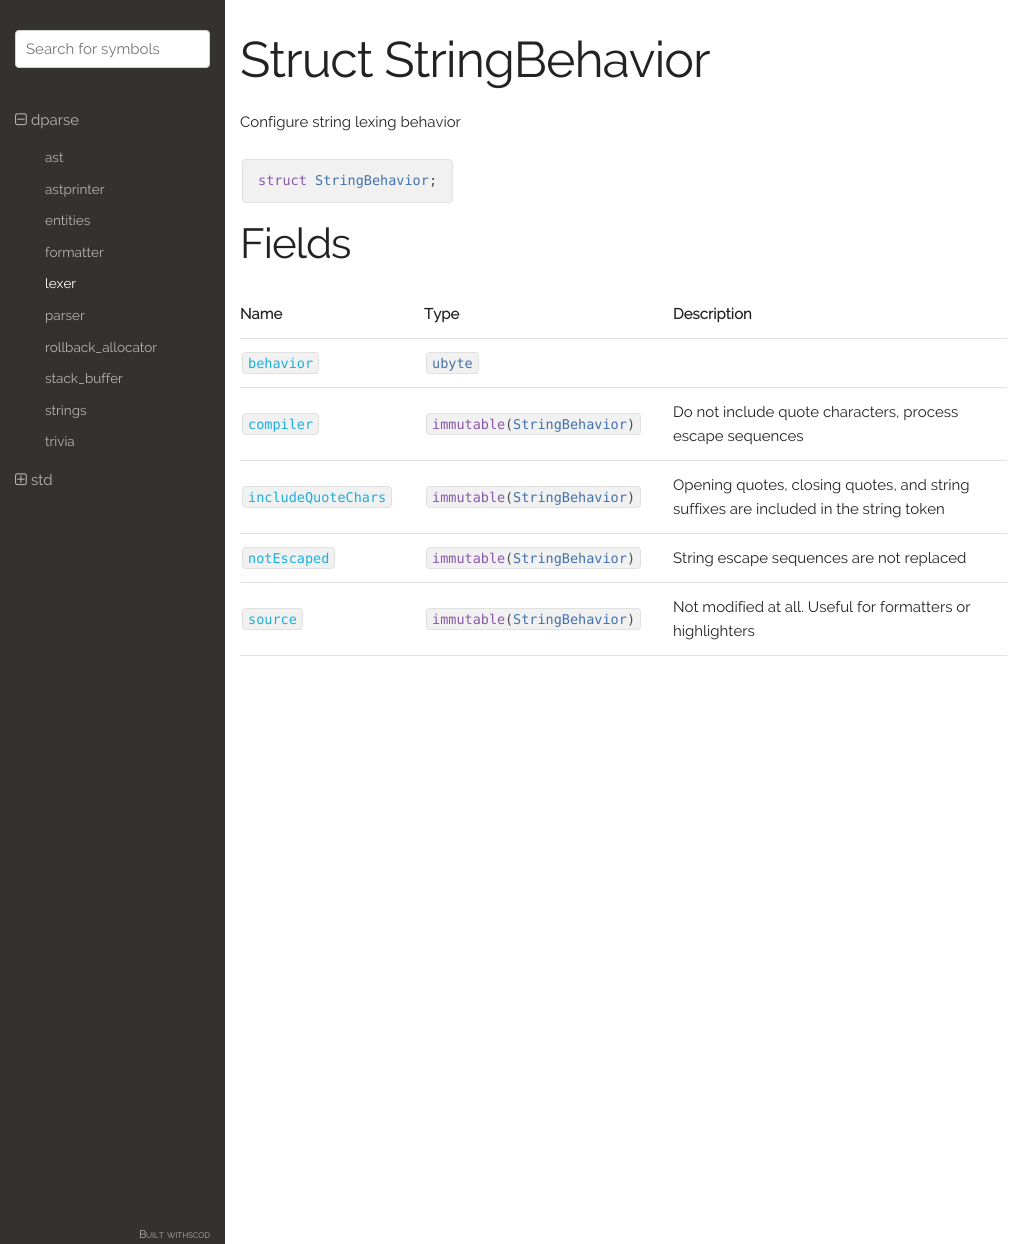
#include <cairo.h>
#include <math.h>
#include <stddef.h>


static void rgb(cairo_t *cr, int r, int g, int b)
{
	cairo_set_source_rgb(cr, r / 255.0, g / 255.0, b / 255.0);
}

static void face(cairo_t *cr, const char *family, double size, int italic, int bold)
{
	cairo_select_font_face(cr, family, italic ? CAIRO_FONT_SLANT_ITALIC : CAIRO_FONT_SLANT_NORMAL,
		bold ? CAIRO_FONT_WEIGHT_BOLD : CAIRO_FONT_WEIGHT_NORMAL);
	cairo_set_font_size(cr, size);
}

static void label(cairo_t *cr, double x, double y, const char *s)
{
	cairo_move_to(cr, x, y);
	cairo_show_text(cr, s);
}

static void tracked(cairo_t *cr, double x, double y, const char *s, double letter, double word)
{
	cairo_move_to(cr, x, y);
	while (*s) {
		char ch[5] = {0};
		int n = 0;
		do ch[n++] = *s++; while ((*s & 0xC0) == 0x80);
		cairo_show_text(cr, ch);
		cairo_rel_move_to(cr, letter + word * (*ch == ' '), 0);
	}
}

static void rect(cairo_t *cr, double x, double y, double w, double h)
{
	cairo_rectangle(cr, x, y, w, h);
	cairo_fill(cr);
}

static void rrect(cairo_t *cr, double x, double y, double w, double h, double r)
{
	cairo_new_sub_path(cr);
	cairo_arc(cr, x + w - r, y + h - r, r, 0, M_PI / 2);
	cairo_arc(cr, x + r, y + h - r, r, M_PI / 2, M_PI);
	cairo_arc(cr, x + r, y + r, r, M_PI, 1.5 * M_PI);
	cairo_arc(cr, x + w - r, y + r, r, 1.5 * M_PI, 2 * M_PI);
	cairo_close_path(cr);
}

static void image(cairo_t *cr, const char *path, double x, double y, double w, double h)
{
	cairo_surface_t *image = cairo_image_surface_create_from_png(path);
	cairo_save(cr);
	cairo_set_source_surface(cr, image, x, y);
	cairo_rectangle(cr, x, y, w, h);
	cairo_fill(cr);
	cairo_restore(cr);
	cairo_surface_destroy(image);
}

static void draw(cairo_t *cr) {
	rgb(cr, 255, 255, 255);
	cairo_paint(cr);
	rgb(cr, 52, 49, 49);
	rect(cr, 0, 0, 225, 1244);
	rgb(cr, 255, 255, 255);
	rrect(cr, 15.5, 30.5, 194, 37, 3.5);
	cairo_fill_preserve(cr);
	rgb(cr, 209, 209, 209);
	cairo_set_line_width(cr, 1);
	cairo_stroke(cr);
	face(cr, "Raleway", 15, 0, 0);
	rgb(cr, 117, 117, 117);
	label(cr, 26, 54, "Search for symbols");
	image(cr, "image0.png", 15, 113, 12, 13);
	rgb(cr, 179, 179, 179);
	label(cr, 31, 125, "dparse");
	face(cr, "Raleway", 13.5, 0, 0);
	label(cr, 45, 162, "ast");
	label(cr, 45, 194, "astprinter");
	label(cr, 45, 225, "entities");
	label(cr, 45, 257, "formatter");
	rgb(cr, 255, 255, 255);
	label(cr, 45, 288, "lexer");
	rgb(cr, 179, 179, 179);
	label(cr, 45, 320, "parser");
	label(cr, 45, 352, "rollback_allocator");
	label(cr, 45, 383, "stack_buffer");
	label(cr, 45, 415, "strings");
	label(cr, 45, 446, "trivia");
	image(cr, "image1.png", 15, 473, 12, 13);
	face(cr, "Raleway", 15, 0, 0);
	label(cr, 31, 485, "std");
	face(cr, "Raleway", 11, 0, 0);
	label(cr, 139, 1238, "B");
	face(cr, "Raleway", 8, 0, 0);
	label(cr, 146, 1238, "UILT");
	label(cr, 167, 1238, "WITH");
	label(cr, 188, 1238, "SCOD");
	face(cr, "Raleway", 50, 0, 0);
	rgb(cr, 34, 34, 34);
	tracked(cr, 240, 77, "Struct StringBehavior", -1, 0);
	face(cr, "Raleway", 15, 0, 0);
	label(cr, 240, 127, "Configure string lexing behavior");
	rgb(cr, 241, 241, 241);
	rrect(cr, 242.5, 159.5, 210, 43, 3.5);
	cairo_fill_preserve(cr);
	rgb(cr, 225, 225, 225);
	cairo_stroke(cr);
	face(cr, "DejaVu Sans Mono", 13.5, 0, 0);
	rgb(cr, 137, 89, 168);
	label(cr, 258, 185, "struct");
	rgb(cr, 66, 113, 174);
	label(cr, 315, 185, "StringBehavior");
	rgb(cr, 77, 77, 76);
	label(cr, 429, 185, ";");
	face(cr, "Raleway", 42, 0, 0);
	rgb(cr, 34, 34, 34);
	tracked(cr, 240, 258, "Fields", -1, 0);
	face(cr, "Raleway", 15, 0, 1);
	label(cr, 240, 319, "Name");
	label(cr, 424, 319, "Type");
	rgb(cr, 225, 225, 225);
	rect(cr, 240, 338, 767, 1);
	rgb(cr, 34, 34, 34);
	label(cr, 673, 319, "Description");
	rgb(cr, 241, 241, 241);
	rrect(cr, 242.5, 352.5, 76, 21, 3.5);
	cairo_fill_preserve(cr);
	rgb(cr, 225, 225, 225);
	cairo_stroke(cr);
	face(cr, "DejaVu Sans Mono", 13.5, 0, 0);
	rgb(cr, 30, 174, 219);
	label(cr, 248, 368, "behavior");
	rgb(cr, 241, 241, 241);
	rrect(cr, 426.5, 352.5, 52, 21, 3.5);
	cairo_fill_preserve(cr);
	rgb(cr, 225, 225, 225);
	cairo_stroke(cr);
	rgb(cr, 66, 113, 174);
	label(cr, 432, 368, "ubyte");
	rgb(cr, 225, 225, 225);
	rect(cr, 240, 387, 767, 1);
	rgb(cr, 241, 241, 241);
	rrect(cr, 242.5, 413.5, 76, 21, 3.5);
	cairo_fill_preserve(cr);
	rgb(cr, 225, 225, 225);
	cairo_stroke(cr);
	rgb(cr, 30, 174, 219);
	label(cr, 248, 429, "compiler");
	rgb(cr, 241, 241, 241);
	cairo_new_path(cr);
	cairo_move_to(cr, 430, 413);
	cairo_line_to(cr, 505, 413);
	cairo_line_to(cr, 505, 435);
	cairo_line_to(cr, 430, 435);
	cairo_curve_to(cr, 428, 435, 426, 433, 426, 431);
	cairo_line_to(cr, 426, 417);
	cairo_curve_to(cr, 426, 415, 428, 413, 430, 413);
	cairo_close_path(cr);
	cairo_fill(cr);
	rgb(cr, 225, 225, 225);
	cairo_set_fill_rule(cr, CAIRO_FILL_RULE_EVEN_ODD);
	cairo_new_path(cr);
	cairo_move_to(cr, 430, 413);
	cairo_line_to(cr, 505, 413);
	cairo_line_to(cr, 505, 435);
	cairo_line_to(cr, 430, 435);
	cairo_curve_to(cr, 428, 435, 426, 433, 426, 431);
	cairo_line_to(cr, 426, 417);
	cairo_curve_to(cr, 426, 415, 428, 413, 430, 413);
	cairo_close_path(cr);
	cairo_move_to(cr, 430, 414);
	cairo_line_to(cr, 505, 414);
	cairo_line_to(cr, 505, 434);
	cairo_line_to(cr, 430, 434);
	cairo_curve_to(cr, 428, 434, 427, 433, 427, 431);
	cairo_line_to(cr, 427, 417);
	cairo_curve_to(cr, 427, 415, 428, 414, 430, 414);
	cairo_close_path(cr);
	cairo_fill(cr);
	rgb(cr, 137, 89, 168);
	label(cr, 432, 429, "immutable");
	rgb(cr, 241, 241, 241);
	rect(cr, 505, 413, 8, 22);
	rgb(cr, 225, 225, 225);
	rect(cr, 505, 413, 122, 1);
	rgb(cr, 77, 77, 76);
	label(cr, 505, 429, "(");
	rgb(cr, 241, 241, 241);
	rect(cr, 513, 414, 114, 20);
	rgb(cr, 66, 113, 174);
	label(cr, 513, 429, "StringBehavior");
	rgb(cr, 225, 225, 225);
	rect(cr, 505, 434, 122, 1);
	rgb(cr, 241, 241, 241);
	cairo_new_path(cr);
	cairo_move_to(cr, 627, 413);
	cairo_line_to(cr, 637, 413);
	cairo_curve_to(cr, 639, 413, 641, 415, 641, 417);
	cairo_line_to(cr, 641, 431);
	cairo_curve_to(cr, 641, 433, 639, 435, 637, 435);
	cairo_line_to(cr, 627, 435);
	cairo_close_path(cr);
	cairo_fill(cr);
	rgb(cr, 225, 225, 225);
	cairo_new_path(cr);
	cairo_move_to(cr, 627, 413);
	cairo_line_to(cr, 637, 413);
	cairo_curve_to(cr, 639, 413, 641, 415, 641, 417);
	cairo_line_to(cr, 641, 431);
	cairo_curve_to(cr, 641, 433, 639, 435, 637, 435);
	cairo_line_to(cr, 627, 435);
	cairo_close_path(cr);
	cairo_move_to(cr, 627, 414);
	cairo_line_to(cr, 637, 414);
	cairo_curve_to(cr, 638.5, 414, 640, 415.5, 640, 417);
	cairo_line_to(cr, 640, 431);
	cairo_curve_to(cr, 640, 432.5, 638.5, 434, 637, 434);
	cairo_line_to(cr, 627, 434);
	cairo_close_path(cr);
	cairo_fill(cr);
	rgb(cr, 77, 77, 76);
	label(cr, 627, 429, ")");
	rgb(cr, 225, 225, 225);
	rect(cr, 240, 460, 767, 1);
	face(cr, "Raleway", 15, 0, 0);
	rgb(cr, 34, 34, 34);
	label(cr, 673, 417, "Do not include quote characters, process");
	label(cr, 673, 441, "escape sequences");
	rgb(cr, 241, 241, 241);
	rrect(cr, 242.5, 486.5, 149, 21, 3.5);
	cairo_fill_preserve(cr);
	rgb(cr, 225, 225, 225);
	cairo_stroke(cr);
	face(cr, "DejaVu Sans Mono", 13.5, 0, 0);
	rgb(cr, 30, 174, 219);
	label(cr, 248, 502, "includeQuoteChars");
	rgb(cr, 241, 241, 241);
	cairo_new_path(cr);
	cairo_move_to(cr, 430, 486);
	cairo_line_to(cr, 505, 486);
	cairo_line_to(cr, 505, 508);
	cairo_line_to(cr, 430, 508);
	cairo_curve_to(cr, 428, 508, 426, 506, 426, 504);
	cairo_line_to(cr, 426, 490);
	cairo_curve_to(cr, 426, 488, 428, 486, 430, 486);
	cairo_close_path(cr);
	cairo_fill(cr);
	rgb(cr, 225, 225, 225);
	cairo_new_path(cr);
	cairo_move_to(cr, 430, 486);
	cairo_line_to(cr, 505, 486);
	cairo_line_to(cr, 505, 508);
	cairo_line_to(cr, 430, 508);
	cairo_curve_to(cr, 428, 508, 426, 506, 426, 504);
	cairo_line_to(cr, 426, 490);
	cairo_curve_to(cr, 426, 488, 428, 486, 430, 486);
	cairo_close_path(cr);
	cairo_move_to(cr, 430, 487);
	cairo_line_to(cr, 505, 487);
	cairo_line_to(cr, 505, 507);
	cairo_line_to(cr, 430, 507);
	cairo_curve_to(cr, 428, 507, 427, 506, 427, 504);
	cairo_line_to(cr, 427, 490);
	cairo_curve_to(cr, 427, 488, 428, 487, 430, 487);
	cairo_close_path(cr);
	cairo_fill(cr);
	rgb(cr, 137, 89, 168);
	label(cr, 432, 502, "immutable");
	rgb(cr, 241, 241, 241);
	rect(cr, 505, 486, 8, 22);
	rgb(cr, 225, 225, 225);
	rect(cr, 505, 486, 122, 1);
	rgb(cr, 77, 77, 76);
	label(cr, 505, 502, "(");
	rgb(cr, 241, 241, 241);
	rect(cr, 513, 487, 114, 20);
	rgb(cr, 66, 113, 174);
	label(cr, 513, 502, "StringBehavior");
	rgb(cr, 225, 225, 225);
	rect(cr, 505, 507, 122, 1);
	rgb(cr, 241, 241, 241);
	cairo_new_path(cr);
	cairo_move_to(cr, 627, 486);
	cairo_line_to(cr, 637, 486);
	cairo_curve_to(cr, 639, 486, 641, 488, 641, 490);
	cairo_line_to(cr, 641, 504);
	cairo_curve_to(cr, 641, 506, 639, 508, 637, 508);
	cairo_line_to(cr, 627, 508);
	cairo_close_path(cr);
	cairo_fill(cr);
	rgb(cr, 225, 225, 225);
	cairo_new_path(cr);
	cairo_move_to(cr, 627, 486);
	cairo_line_to(cr, 637, 486);
	cairo_curve_to(cr, 639, 486, 641, 488, 641, 490);
	cairo_line_to(cr, 641, 504);
	cairo_curve_to(cr, 641, 506, 639, 508, 637, 508);
	cairo_line_to(cr, 627, 508);
	cairo_close_path(cr);
	cairo_move_to(cr, 627, 487);
	cairo_line_to(cr, 637, 487);
	cairo_curve_to(cr, 638.5, 487, 640, 488.5, 640, 490);
	cairo_line_to(cr, 640, 504);
	cairo_curve_to(cr, 640, 505.5, 638.5, 507, 637, 507);
	cairo_line_to(cr, 627, 507);
	cairo_close_path(cr);
	cairo_fill(cr);
	rgb(cr, 77, 77, 76);
	label(cr, 627, 502, ")");
	rgb(cr, 225, 225, 225);
	rect(cr, 240, 533, 767, 1);
	face(cr, "Raleway", 15, 0, 0);
	rgb(cr, 34, 34, 34);
	label(cr, 673, 490, "Opening quotes, closing quotes, and string");
	label(cr, 673, 514, "suffixes are included in the string token");
	rgb(cr, 241, 241, 241);
	rrect(cr, 242.5, 547.5, 92, 21, 3.5);
	cairo_fill_preserve(cr);
	rgb(cr, 225, 225, 225);
	cairo_stroke(cr);
	face(cr, "DejaVu Sans Mono", 13.5, 0, 0);
	rgb(cr, 30, 174, 219);
	label(cr, 248, 563, "notEscaped");
	rgb(cr, 241, 241, 241);
	cairo_new_path(cr);
	cairo_move_to(cr, 430, 547);
	cairo_line_to(cr, 505, 547);
	cairo_line_to(cr, 505, 569);
	cairo_line_to(cr, 430, 569);
	cairo_curve_to(cr, 428, 569, 426, 567, 426, 565);
	cairo_line_to(cr, 426, 551);
	cairo_curve_to(cr, 426, 549, 428, 547, 430, 547);
	cairo_close_path(cr);
	cairo_fill(cr);
	rgb(cr, 225, 225, 225);
	cairo_new_path(cr);
	cairo_move_to(cr, 430, 547);
	cairo_line_to(cr, 505, 547);
	cairo_line_to(cr, 505, 569);
	cairo_line_to(cr, 430, 569);
	cairo_curve_to(cr, 428, 569, 426, 567, 426, 565);
	cairo_line_to(cr, 426, 551);
	cairo_curve_to(cr, 426, 549, 428, 547, 430, 547);
	cairo_close_path(cr);
	cairo_move_to(cr, 430, 548);
	cairo_line_to(cr, 505, 548);
	cairo_line_to(cr, 505, 568);
	cairo_line_to(cr, 430, 568);
	cairo_curve_to(cr, 428, 568, 427, 567, 427, 565);
	cairo_line_to(cr, 427, 551);
	cairo_curve_to(cr, 427, 549, 428, 548, 430, 548);
	cairo_close_path(cr);
	cairo_fill(cr);
	rgb(cr, 137, 89, 168);
	label(cr, 432, 563, "immutable");
	rgb(cr, 241, 241, 241);
	rect(cr, 505, 547, 8, 22);
	rgb(cr, 225, 225, 225);
	rect(cr, 505, 547, 122, 1);
	rgb(cr, 77, 77, 76);
	label(cr, 505, 563, "(");
	rgb(cr, 241, 241, 241);
	rect(cr, 513, 548, 114, 20);
	rgb(cr, 66, 113, 174);
	label(cr, 513, 563, "StringBehavior");
	rgb(cr, 225, 225, 225);
	rect(cr, 505, 568, 122, 1);
	rgb(cr, 241, 241, 241);
	cairo_new_path(cr);
	cairo_move_to(cr, 627, 547);
	cairo_line_to(cr, 637, 547);
	cairo_curve_to(cr, 639, 547, 641, 549, 641, 551);
	cairo_line_to(cr, 641, 565);
	cairo_curve_to(cr, 641, 567, 639, 569, 637, 569);
	cairo_line_to(cr, 627, 569);
	cairo_close_path(cr);
	cairo_fill(cr);
	rgb(cr, 225, 225, 225);
	cairo_new_path(cr);
	cairo_move_to(cr, 627, 547);
	cairo_line_to(cr, 637, 547);
	cairo_curve_to(cr, 639, 547, 641, 549, 641, 551);
	cairo_line_to(cr, 641, 565);
	cairo_curve_to(cr, 641, 567, 639, 569, 637, 569);
	cairo_line_to(cr, 627, 569);
	cairo_close_path(cr);
	cairo_move_to(cr, 627, 548);
	cairo_line_to(cr, 637, 548);
	cairo_curve_to(cr, 638.5, 548, 640, 549.5, 640, 551);
	cairo_line_to(cr, 640, 565);
	cairo_curve_to(cr, 640, 566.5, 638.5, 568, 637, 568);
	cairo_line_to(cr, 627, 568);
	cairo_close_path(cr);
	cairo_fill(cr);
	rgb(cr, 77, 77, 76);
	label(cr, 627, 563, ")");
	rgb(cr, 225, 225, 225);
	rect(cr, 240, 582, 767, 1);
	face(cr, "Raleway", 15, 0, 0);
	rgb(cr, 34, 34, 34);
	label(cr, 673, 563, "String escape sequences are not replaced");
	rgb(cr, 241, 241, 241);
	rrect(cr, 242.5, 608.5, 60, 21, 3.5);
	cairo_fill_preserve(cr);
	rgb(cr, 225, 225, 225);
	cairo_stroke(cr);
	face(cr, "DejaVu Sans Mono", 13.5, 0, 0);
	rgb(cr, 30, 174, 219);
	label(cr, 248, 624, "source");
	rgb(cr, 241, 241, 241);
	cairo_new_path(cr);
	cairo_move_to(cr, 430, 608);
	cairo_line_to(cr, 505, 608);
	cairo_line_to(cr, 505, 630);
	cairo_line_to(cr, 430, 630);
	cairo_curve_to(cr, 428, 630, 426, 628, 426, 626);
	cairo_line_to(cr, 426, 612);
	cairo_curve_to(cr, 426, 610, 428, 608, 430, 608);
	cairo_close_path(cr);
	cairo_fill(cr);
	rgb(cr, 225, 225, 225);
	cairo_new_path(cr);
	cairo_move_to(cr, 430, 608);
	cairo_line_to(cr, 505, 608);
	cairo_line_to(cr, 505, 630);
	cairo_line_to(cr, 430, 630);
	cairo_curve_to(cr, 428, 630, 426, 628, 426, 626);
	cairo_line_to(cr, 426, 612);
	cairo_curve_to(cr, 426, 610, 428, 608, 430, 608);
	cairo_close_path(cr);
	cairo_move_to(cr, 430, 609);
	cairo_line_to(cr, 505, 609);
	cairo_line_to(cr, 505, 629);
	cairo_line_to(cr, 430, 629);
	cairo_curve_to(cr, 428, 629, 427, 628, 427, 626);
	cairo_line_to(cr, 427, 612);
	cairo_curve_to(cr, 427, 610, 428, 609, 430, 609);
	cairo_close_path(cr);
	cairo_fill(cr);
	rgb(cr, 137, 89, 168);
	label(cr, 432, 624, "immutable");
	rgb(cr, 241, 241, 241);
	rect(cr, 505, 608, 8, 22);
	rgb(cr, 225, 225, 225);
	rect(cr, 505, 608, 122, 1);
	rgb(cr, 77, 77, 76);
	label(cr, 505, 624, "(");
	rgb(cr, 241, 241, 241);
	rect(cr, 513, 609, 114, 20);
	rgb(cr, 66, 113, 174);
	label(cr, 513, 624, "StringBehavior");
	rgb(cr, 225, 225, 225);
	rect(cr, 505, 629, 122, 1);
	rgb(cr, 241, 241, 241);
	cairo_new_path(cr);
	cairo_move_to(cr, 627, 608);
	cairo_line_to(cr, 637, 608);
	cairo_curve_to(cr, 639, 608, 641, 610, 641, 612);
	cairo_line_to(cr, 641, 626);
	cairo_curve_to(cr, 641, 628, 639, 630, 637, 630);
	cairo_line_to(cr, 627, 630);
	cairo_close_path(cr);
	cairo_fill(cr);
	rgb(cr, 225, 225, 225);
	cairo_new_path(cr);
	cairo_move_to(cr, 627, 608);
	cairo_line_to(cr, 637, 608);
	cairo_curve_to(cr, 639, 608, 641, 610, 641, 612);
	cairo_line_to(cr, 641, 626);
	cairo_curve_to(cr, 641, 628, 639, 630, 637, 630);
	cairo_line_to(cr, 627, 630);
	cairo_close_path(cr);
	cairo_move_to(cr, 627, 609);
	cairo_line_to(cr, 637, 609);
	cairo_curve_to(cr, 638.5, 609, 640, 610.5, 640, 612);
	cairo_line_to(cr, 640, 626);
	cairo_curve_to(cr, 640, 627.5, 638.5, 629, 637, 629);
	cairo_line_to(cr, 627, 629);
	cairo_close_path(cr);
	cairo_fill(cr);
	rgb(cr, 77, 77, 76);
	label(cr, 627, 624, ")");
	rgb(cr, 225, 225, 225);
	rect(cr, 240, 655, 767, 1);
	face(cr, "Raleway", 15, 0, 0);
	rgb(cr, 34, 34, 34);
	label(cr, 673, 612, "Not modified at all. Useful for formatters or");
	label(cr, 673, 636, "highlighters");
}

int main(void) {
	cairo_surface_t *surface = cairo_image_surface_create(CAIRO_FORMAT_RGB24, 1021, 1244);
	cairo_t *cr = cairo_create(surface);
	cairo_font_options_t *options = cairo_font_options_create();
	cairo_font_options_set_hint_metrics(options, CAIRO_HINT_METRICS_OFF);
	cairo_font_options_set_hint_style(options, CAIRO_HINT_STYLE_NONE);
	cairo_set_font_options(cr, options);
	cairo_set_miter_limit(cr, 4);
	draw(cr);
	cairo_surface_write_to_png(surface, "render.png");
	cairo_font_options_destroy(options);
	cairo_destroy(cr);
	cairo_surface_destroy(surface);
	return 0;
}
